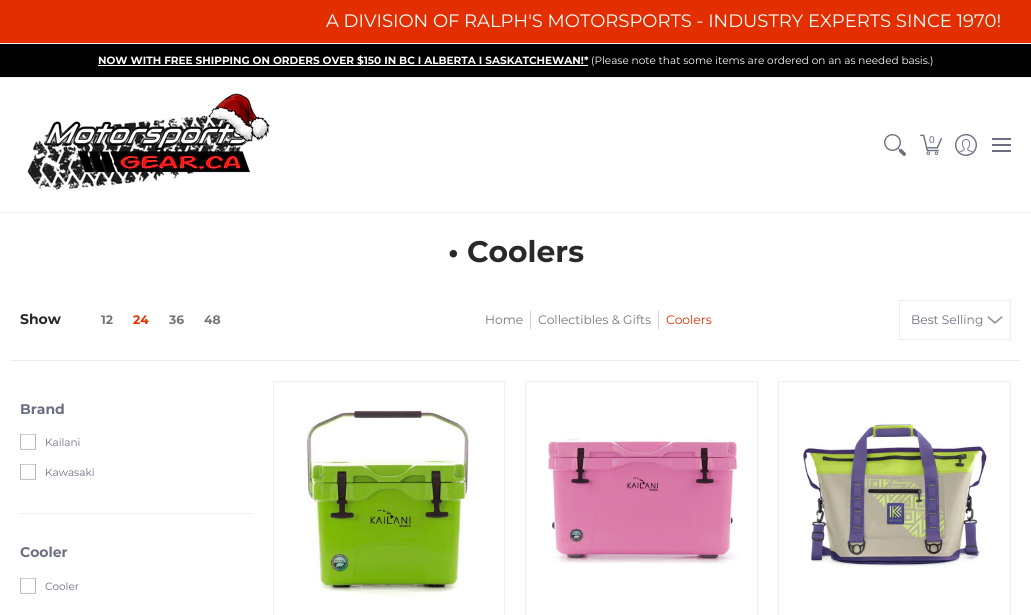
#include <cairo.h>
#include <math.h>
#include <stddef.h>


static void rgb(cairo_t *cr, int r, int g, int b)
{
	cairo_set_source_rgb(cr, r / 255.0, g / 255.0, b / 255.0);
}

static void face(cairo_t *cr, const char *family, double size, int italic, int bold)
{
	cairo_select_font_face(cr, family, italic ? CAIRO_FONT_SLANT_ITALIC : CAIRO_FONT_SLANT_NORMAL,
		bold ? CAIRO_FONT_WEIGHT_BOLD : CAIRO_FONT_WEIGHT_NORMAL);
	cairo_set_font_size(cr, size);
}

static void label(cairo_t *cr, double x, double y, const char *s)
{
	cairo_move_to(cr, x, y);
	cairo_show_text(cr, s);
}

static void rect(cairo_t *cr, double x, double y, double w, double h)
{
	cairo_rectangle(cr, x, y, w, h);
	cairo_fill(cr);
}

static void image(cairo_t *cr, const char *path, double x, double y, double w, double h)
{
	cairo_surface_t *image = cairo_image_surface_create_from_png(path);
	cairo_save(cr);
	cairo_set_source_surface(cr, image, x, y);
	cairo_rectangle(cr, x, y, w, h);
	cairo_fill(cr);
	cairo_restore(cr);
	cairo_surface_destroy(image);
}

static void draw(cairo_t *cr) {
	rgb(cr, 255, 255, 255);
	cairo_paint(cr);
	rgb(cr, 227, 46, 0);
	rect(cr, 0, 0, 1031, 43);
	rgb(cr, 237, 238, 244);
	rect(cr, 0, 43, 1031, 1);
	face(cr, "Montserrat", 18, 0, 0);
	rgb(cr, 255, 255, 255);
	label(cr, 326, 27, "A DIVISION OF RALPH'S MOTORSPORTS - INDUSTRY EXPERTS SINCE 1970!");
	rgb(cr, 0, 0, 0);
	rect(cr, 0, 44, 1031, 33);
	rgb(cr, 237, 238, 244);
	rect(cr, 0, 77, 1031, 1);
	rgb(cr, 255, 255, 255);
	rect(cr, 98, 65, 490, 1);
	face(cr, "Montserrat", 10.5, 0, 1);
	label(cr, 98, 64, "NOW WITH FREE SHIPPING ON ORDERS OVER $150 IN BC I ALBERTA I SASKATCHEWAN!*");
	face(cr, "Montserrat", 10.5, 0, 0);
	label(cr, 591, 64, "(Please note that some items are ordered on an as needed basis.)");
	rgb(cr, 237, 238, 244);
	rect(cr, 0, 212, 1031, 1);
	image(cr, "image0.png", 27, 93, 243, 97);
	image(cr, "image1.png", 884, 134, 22, 22);
	image(cr, "image2.png", 920, 134, 22, 22);
	face(cr, "Liberation Sans", 10, 0, 0);
	rgb(cr, 107, 111, 129);
	label(cr, 929, 143, "0");
	image(cr, "image3.png", 955, 134, 22, 22);
	rect(cr, 992, 138, 19, 2);
	rect(cr, 992, 150, 19, 2);
	rect(cr, 992, 144, 19, 2);
	face(cr, "Montserrat", 29.75, 0, 1);
	rgb(cr, 41, 41, 41);
	label(cr, 448, 262, "• Coolers");
	rgb(cr, 237, 238, 244);
	rect(cr, 10, 360, 1011, 1);
	face(cr, "Montserrat", 14, 0, 1);
	rgb(cr, 41, 41, 41);
	label(cr, 20, 324, "Show");
	face(cr, "Montserrat", 12.25, 0, 1);
	rgb(cr, 118, 118, 118);
	label(cr, 101, 324, "12");
	rgb(cr, 227, 46, 0);
	label(cr, 133, 324, "24");
	rgb(cr, 118, 118, 118);
	label(cr, 169, 324, "36");
	label(cr, 204, 324, "48");
	face(cr, "Montserrat", 12.25, 0, 0);
	label(cr, 485, 324, "Home");
	rgb(cr, 205, 208, 225);
	rect(cr, 530, 311, 1, 18);
	rgb(cr, 118, 118, 118);
	label(cr, 538, 324, "Collectibles & Gifts");
	rgb(cr, 205, 208, 225);
	rect(cr, 658, 311, 1, 18);
	rgb(cr, 227, 46, 0);
	label(cr, 666, 324, "Coolers");
	image(cr, "image4.png", 987, 316, 16, 8);
	cairo_rectangle(cr, 899.5, 300.5, 111, 39);
	rgb(cr, 237, 238, 244);
	cairo_set_line_width(cr, 1);
	cairo_stroke(cr);
	rgb(cr, 107, 111, 129);
	label(cr, 911, 324, "Best Selling");
	rgb(cr, 237, 238, 244);
	rect(cr, 20, 513, 233, 1);
	face(cr, "Montserrat", 14, 0, 1);
	rgb(cr, 107, 111, 129);
	label(cr, 20, 414, "Brand");
	image(cr, "image5.png", 20, 434, 16, 16);
	face(cr, "Montserrat", 10.5, 0, 0);
	label(cr, 45, 446, "Kailani");
	image(cr, "image5.png", 20, 464, 16, 16);
	label(cr, 45, 476, "Kawasaki");
	face(cr, "Montserrat", 14, 0, 1);
	label(cr, 20, 557, "Cooler");
	image(cr, "image5.png", 20, 578, 16, 16);
	face(cr, "Montserrat", 10.5, 0, 0);
	label(cr, 45, 590, "Cooler");
	cairo_rectangle(cr, 273.5, 381.5, 231, 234);
	rgb(cr, 237, 238, 244);
	cairo_stroke(cr);
	image(cr, "image6.png", 306, 410, 165, 188);
	cairo_rectangle(cr, 525.5, 381.5, 232, 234);
	cairo_stroke(cr);
	image(cr, "image7.png", 547, 439, 191, 125);
	cairo_rectangle(cr, 778.5, 381.5, 232, 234);
	cairo_stroke(cr);
	image(cr, "image8.png", 803, 423, 185, 145);
}

int main(void) {
	cairo_surface_t *surface = cairo_image_surface_create(CAIRO_FORMAT_RGB24, 1031, 615);
	cairo_t *cr = cairo_create(surface);
	cairo_font_options_t *options = cairo_font_options_create();
	cairo_font_options_set_hint_metrics(options, CAIRO_HINT_METRICS_OFF);
	cairo_font_options_set_hint_style(options, CAIRO_HINT_STYLE_NONE);
	cairo_set_font_options(cr, options);
	cairo_set_miter_limit(cr, 4);
	draw(cr);
	cairo_surface_write_to_png(surface, "render.png");
	cairo_font_options_destroy(options);
	cairo_destroy(cr);
	cairo_surface_destroy(surface);
	return 0;
}
